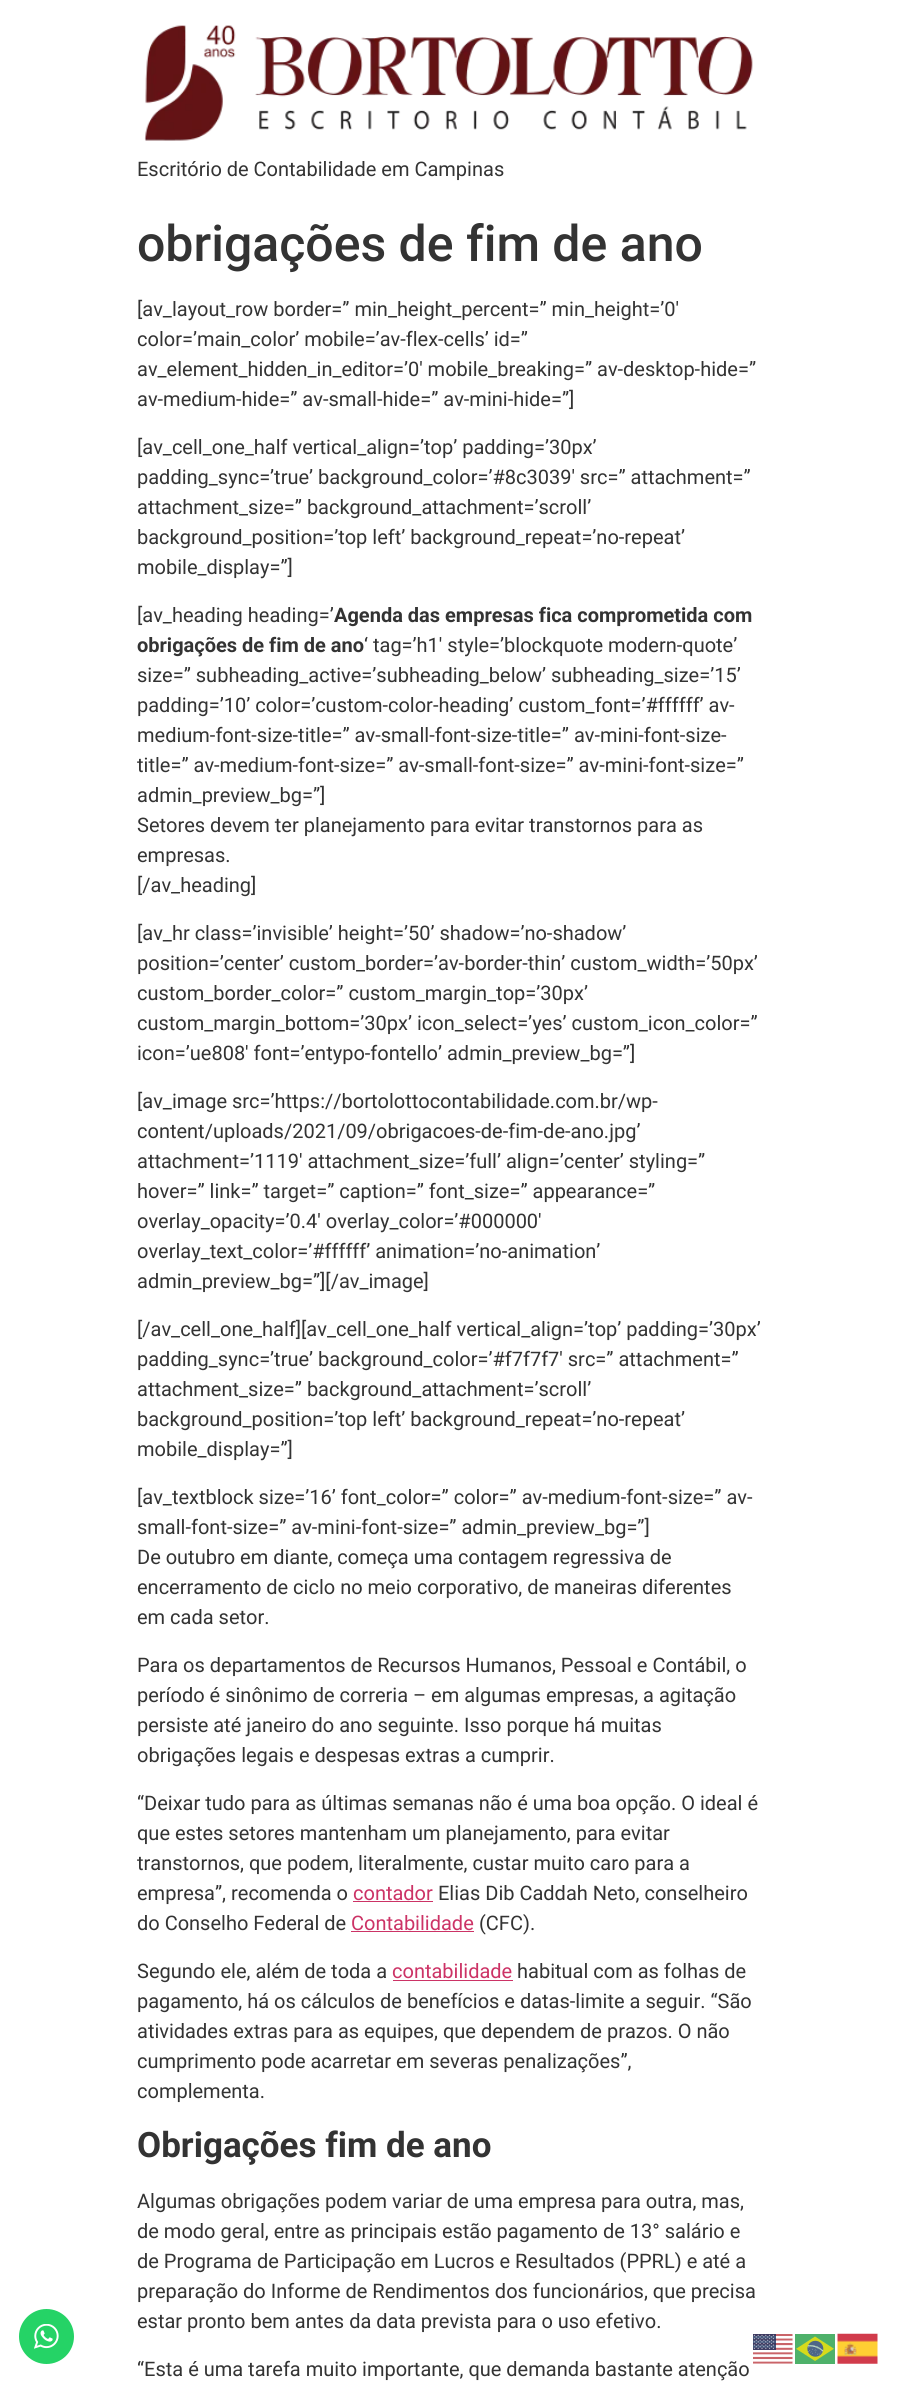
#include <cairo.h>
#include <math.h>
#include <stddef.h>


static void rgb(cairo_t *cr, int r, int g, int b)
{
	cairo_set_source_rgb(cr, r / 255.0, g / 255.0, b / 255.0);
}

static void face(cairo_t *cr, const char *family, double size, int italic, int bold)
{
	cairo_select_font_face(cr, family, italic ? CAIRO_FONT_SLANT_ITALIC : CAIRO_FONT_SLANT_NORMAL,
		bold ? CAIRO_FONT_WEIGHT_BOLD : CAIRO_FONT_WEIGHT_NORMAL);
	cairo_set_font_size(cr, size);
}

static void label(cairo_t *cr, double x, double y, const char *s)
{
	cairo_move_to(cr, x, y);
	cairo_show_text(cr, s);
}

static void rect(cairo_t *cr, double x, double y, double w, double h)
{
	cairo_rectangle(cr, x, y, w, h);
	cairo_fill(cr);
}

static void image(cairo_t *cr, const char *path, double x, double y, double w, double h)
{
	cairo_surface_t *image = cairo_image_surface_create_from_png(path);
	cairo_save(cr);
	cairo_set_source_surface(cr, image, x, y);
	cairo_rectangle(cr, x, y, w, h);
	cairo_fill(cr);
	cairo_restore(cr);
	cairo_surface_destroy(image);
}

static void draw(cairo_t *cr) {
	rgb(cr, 255, 255, 255);
	cairo_paint(cr);
	image(cr, "image0.png", 144, 25, 609, 116);
	face(cr, "Roboto", 20, 0, 0);
	rgb(cr, 51, 51, 51);
	label(cr, 137, 176, "Escritório de Contabilidade em Campinas");
	rgb(cr, 37, 211, 102);
	cairo_new_path(cr);
	cairo_arc(cr, 46.5, 2336.5, 27.5, 0, 2 * M_PI);
	cairo_fill(cr);
	image(cr, "image1.png", 34, 2324, 25, 25);
	face(cr, "Roboto Medium", 50, 0, 0);
	rgb(cr, 51, 51, 51);
	label(cr, 137, 261, "obrigações de fim de ano");
	face(cr, "Roboto", 20, 0, 0);
	label(cr, 137, 316, "[av_layout_row border=” min_height_percent=” min_height=’0′");
	label(cr, 137, 346, "color=’main_color’ mobile=’av-flex-cells’ id=”");
	label(cr, 137, 376, "av_element_hidden_in_editor=’0′ mobile_breaking=” av-desktop-hide=”");
	label(cr, 137, 406, "av-medium-hide=” av-small-hide=” av-mini-hide=”]");
	label(cr, 137, 454, "[av_cell_one_half vertical_align=’top’ padding=’30px’");
	label(cr, 137, 484, "padding_sync=’true’ background_color=’#8c3039′ src=” attachment=”");
	label(cr, 137, 514, "attachment_size=” background_attachment=’scroll’");
	label(cr, 137, 544, "background_position=’top left’ background_repeat=’no-repeat’");
	label(cr, 137, 574, "mobile_display=”]");
	label(cr, 137, 622, "[av_heading heading=’");
	face(cr, "Roboto", 20, 0, 1);
	label(cr, 334, 622, "Agenda das empresas fica comprometida com");
	label(cr, 137, 652, "obrigações de fim de ano");
	face(cr, "Roboto", 20, 0, 0);
	label(cr, 364, 652, "‘ tag=’h1′ style=’blockquote modern-quote’");
	label(cr, 137, 682, "size=” subheading_active=’subheading_below’ subheading_size=’15’");
	label(cr, 137, 712, "padding=’10’ color=’custom-color-heading’ custom_font=’#ffffff’ av-");
	label(cr, 137, 742, "medium-font-size-title=” av-small-font-size-title=” av-mini-font-size-");
	label(cr, 137, 772, "title=” av-medium-font-size=” av-small-font-size=” av-mini-font-size=”");
	label(cr, 137, 802, "admin_preview_bg=”]");
	label(cr, 137, 832, "Setores devem ter planejamento para evitar transtornos para as");
	label(cr, 137, 862, "empresas.");
	label(cr, 137, 892, "[/av_heading]");
	label(cr, 137, 940, "[av_hr class=’invisible’ height=’50’ shadow=’no-shadow’");
	label(cr, 137, 970, "position=’center’ custom_border=’av-border-thin’ custom_width=’50px’");
	label(cr, 137, 1000, "custom_border_color=” custom_margin_top=’30px’");
	label(cr, 137, 1030, "custom_margin_bottom=’30px’ icon_select=’yes’ custom_icon_color=”");
	label(cr, 137, 1060, "icon=’ue808′ font=’entypo-fontello’ admin_preview_bg=”]");
	label(cr, 137, 1108, "[av_image src=’https://bortolottocontabilidade.com.br/wp-");
	label(cr, 137, 1138, "content/uploads/2021/09/obrigacoes-de-fim-de-ano.jpg’");
	label(cr, 137, 1168, "attachment=’1119′ attachment_size=’full’ align=’center’ styling=”");
	label(cr, 137, 1198, "hover=” link=” target=” caption=” font_size=” appearance=”");
	label(cr, 137, 1228, "overlay_opacity=’0.4′ overlay_color=’#000000′");
	label(cr, 137, 1258, "overlay_text_color=’#ffffff’ animation=’no-animation’");
	label(cr, 137, 1288, "admin_preview_bg=”][/av_image]");
	label(cr, 137, 1336, "[/av_cell_one_half][av_cell_one_half vertical_align=’top’ padding=’30px’");
	label(cr, 137, 1366, "padding_sync=’true’ background_color=’#f7f7f7′ src=” attachment=”");
	label(cr, 137, 1396, "attachment_size=” background_attachment=’scroll’");
	label(cr, 137, 1426, "background_position=’top left’ background_repeat=’no-repeat’");
	label(cr, 137, 1456, "mobile_display=”]");
	label(cr, 137, 1504, "[av_textblock size=’16’ font_color=” color=” av-medium-font-size=” av-");
	label(cr, 137, 1534, "small-font-size=” av-mini-font-size=” admin_preview_bg=”]");
	label(cr, 137, 1564, "De outubro em diante, começa uma contagem regressiva de");
	label(cr, 137, 1594, "encerramento de ciclo no meio corporativo, de maneiras diferentes");
	label(cr, 137, 1624, "em cada setor.");
	label(cr, 137, 1672, "Para os departamentos de Recursos Humanos, Pessoal e Contábil, o");
	label(cr, 137, 1702, "período é sinônimo de correria – em algumas empresas, a agitação");
	label(cr, 137, 1732, "persiste até janeiro do ano seguinte. Isso porque há muitas");
	label(cr, 137, 1762, "obrigações legais e despesas extras a cumprir.");
	label(cr, 137, 1810, "“Deixar tudo para as últimas semanas não é uma boa opção. O ideal é");
	label(cr, 137, 1840, "que estes setores mantenham um planejamento, para evitar");
	label(cr, 137, 1870, "transtornos, que podem, literalmente, custar muito caro para a");
	label(cr, 137, 1900, "empresa”, recomenda o");
	rgb(cr, 204, 51, 102);
	label(cr, 353, 1900, "contador");
	rect(cr, 353, 1901, 80, 1);
	rgb(cr, 51, 51, 51);
	label(cr, 438, 1900, "Elias Dib Caddah Neto, conselheiro");
	label(cr, 137, 1930, "do Conselho Federal de");
	rgb(cr, 204, 51, 102);
	label(cr, 351, 1930, "Contabilidade");
	rect(cr, 351, 1931, 123, 1);
	rgb(cr, 51, 51, 51);
	label(cr, 479, 1930, "(CFC).");
	label(cr, 137, 1978, "Segundo ele, além de toda a");
	rgb(cr, 204, 51, 102);
	label(cr, 392, 1978, "contabilidade");
	rect(cr, 393, 1980, 120, 1);
	rgb(cr, 51, 51, 51);
	label(cr, 517, 1978, "habitual com as folhas de");
	label(cr, 137, 2008, "pagamento, há os cálculos de benefícios e datas-limite a seguir. “São");
	label(cr, 137, 2038, "atividades extras para as equipes, que dependem de prazos. O não");
	label(cr, 137, 2068, "cumprimento pode acarretar em severas penalizações”,");
	label(cr, 137, 2098, "complementa.");
	face(cr, "Roboto", 35, 0, 1);
	label(cr, 137, 2157, "Obrigações fim de ano");
	face(cr, "Roboto", 20, 0, 0);
	label(cr, 137, 2208, "Algumas obrigações podem variar de uma empresa para outra, mas,");
	label(cr, 137, 2238, "de modo geral, entre as principais estão pagamento de 13° salário e");
	label(cr, 137, 2268, "de Programa de Participação em Lucros e Resultados (PPRL) e até a");
	label(cr, 137, 2298, "preparação do Informe de Rendimentos dos funcionários, que precisa");
	label(cr, 137, 2328, "estar pronto bem antes da data prevista para o uso efetivo.");
	label(cr, 137, 2376, "“Esta é uma tarefa muito importante, que demanda bastante atenção");
	image(cr, "image2.png", 753, 2334, 40, 30);
	image(cr, "image3.png", 795, 2334, 40, 30);
	image(cr, "image4.png", 837, 2333, 41, 31);
}

int main(void) {
	cairo_surface_t *surface = cairo_image_surface_create(CAIRO_FORMAT_RGB24, 898, 2382);
	cairo_t *cr = cairo_create(surface);
	cairo_font_options_t *options = cairo_font_options_create();
	cairo_font_options_set_hint_metrics(options, CAIRO_HINT_METRICS_OFF);
	cairo_font_options_set_hint_style(options, CAIRO_HINT_STYLE_NONE);
	cairo_set_font_options(cr, options);
	cairo_set_miter_limit(cr, 4);
	draw(cr);
	cairo_surface_write_to_png(surface, "render.png");
	cairo_font_options_destroy(options);
	cairo_destroy(cr);
	cairo_surface_destroy(surface);
	return 0;
}
